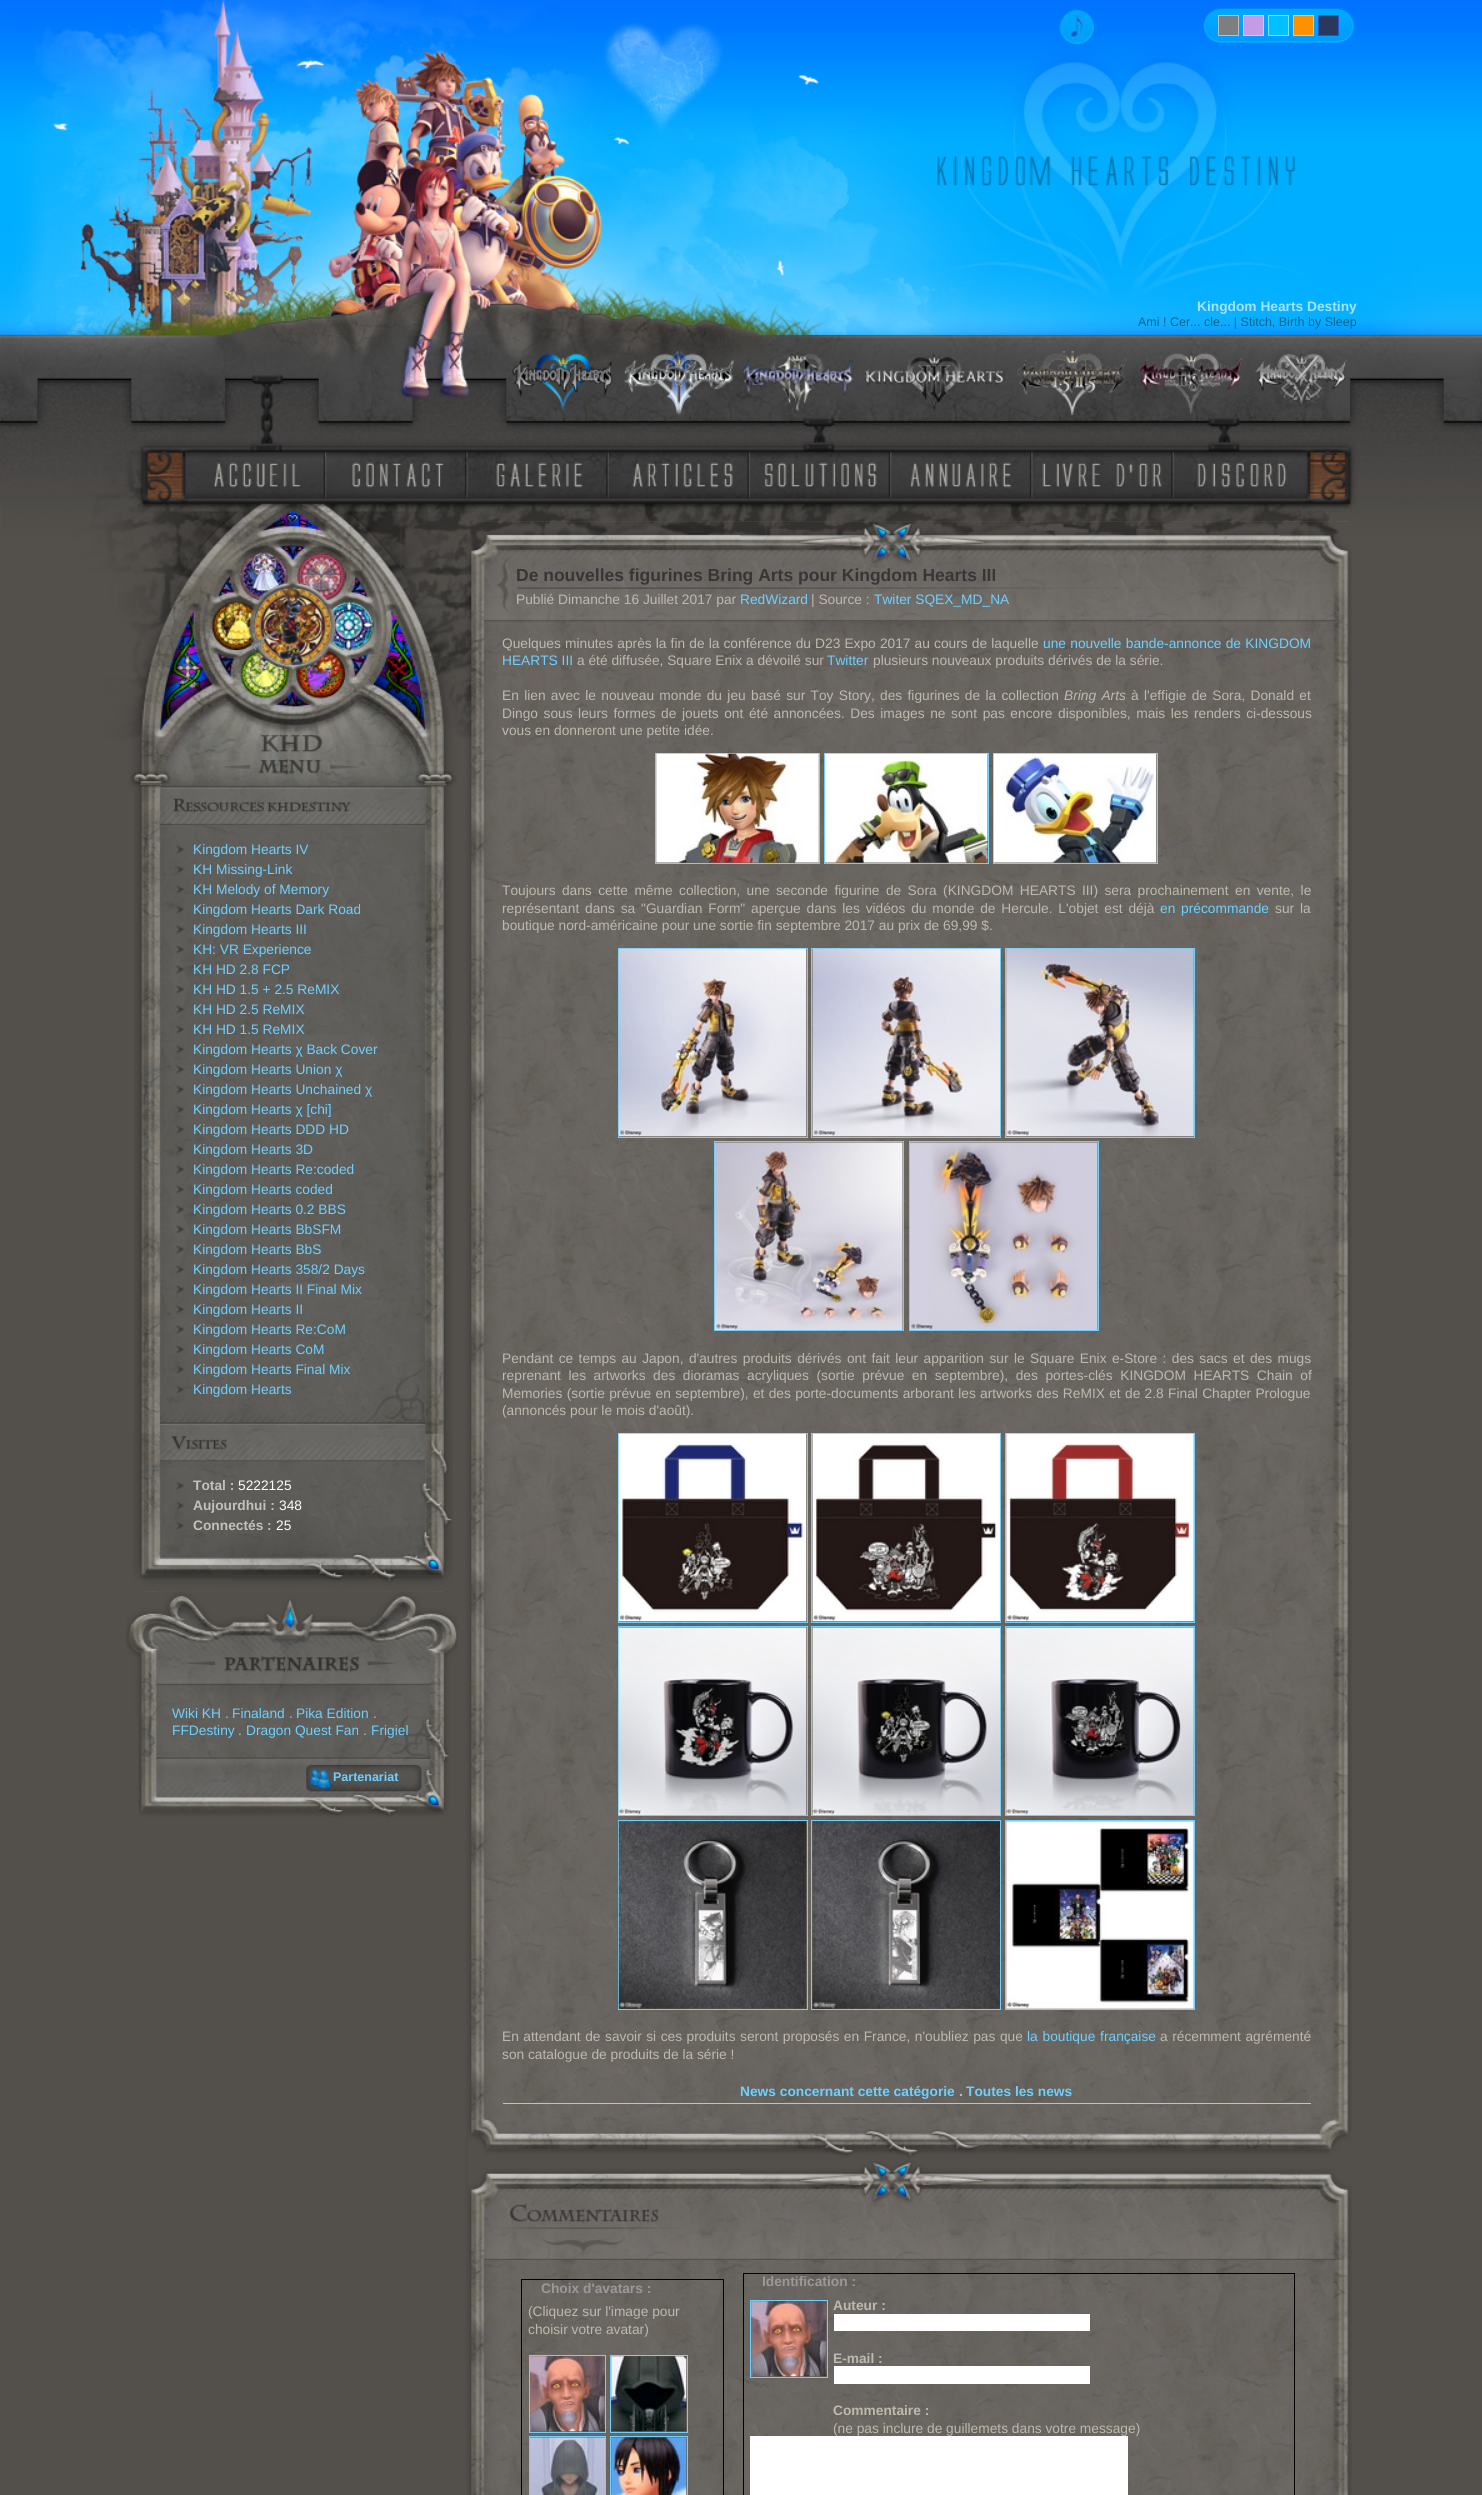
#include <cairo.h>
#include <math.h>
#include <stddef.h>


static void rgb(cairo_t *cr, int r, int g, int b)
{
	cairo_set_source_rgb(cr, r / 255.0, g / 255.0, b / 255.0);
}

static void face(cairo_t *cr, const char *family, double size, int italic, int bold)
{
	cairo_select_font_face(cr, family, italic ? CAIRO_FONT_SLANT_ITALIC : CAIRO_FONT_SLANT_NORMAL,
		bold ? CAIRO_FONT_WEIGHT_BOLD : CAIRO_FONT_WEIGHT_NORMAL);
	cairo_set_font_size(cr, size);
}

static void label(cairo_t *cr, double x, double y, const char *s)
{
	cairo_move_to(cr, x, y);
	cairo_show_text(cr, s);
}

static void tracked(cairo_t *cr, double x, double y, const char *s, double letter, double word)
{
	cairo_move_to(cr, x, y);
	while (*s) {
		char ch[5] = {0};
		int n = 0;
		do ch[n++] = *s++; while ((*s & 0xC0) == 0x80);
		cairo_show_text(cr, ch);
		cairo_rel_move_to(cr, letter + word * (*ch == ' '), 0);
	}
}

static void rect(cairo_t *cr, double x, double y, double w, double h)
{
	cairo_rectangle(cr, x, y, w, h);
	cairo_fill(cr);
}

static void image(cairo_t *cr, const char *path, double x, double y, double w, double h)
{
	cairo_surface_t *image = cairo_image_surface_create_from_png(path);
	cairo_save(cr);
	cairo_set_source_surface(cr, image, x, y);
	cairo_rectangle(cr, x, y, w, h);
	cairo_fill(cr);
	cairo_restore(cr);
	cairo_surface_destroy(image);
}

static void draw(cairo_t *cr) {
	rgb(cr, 83, 80, 76);
	cairo_paint(cr);
	image(cr, "image0.png", 0, 0, 2, 507);
	image(cr, "image3.png", 1, 0, 1481, 788);
	image(cr, "image1.png", 1059, 9, 38, 38);
	image(cr, "image2.png", 1203, 8, 151, 35);
	rgb(cr, 126, 126, 126);
	cairo_rectangle(cr, 1218.5, 15.5, 20, 20);
	cairo_fill_preserve(cr);
	rgb(cr, 189, 189, 189);
	cairo_set_line_width(cr, 1);
	cairo_stroke(cr);
	rgb(cr, 196, 155, 228);
	cairo_rectangle(cr, 1243.5, 15.5, 20, 20);
	cairo_fill_preserve(cr);
	rgb(cr, 224, 200, 242);
	cairo_stroke(cr);
	rgb(cr, 0, 192, 255);
	cairo_rectangle(cr, 1268.5, 15.5, 20, 20);
	cairo_fill_preserve(cr);
	rgb(cr, 128, 224, 255);
	cairo_stroke(cr);
	rgb(cr, 255, 144, 0);
	cairo_rectangle(cr, 1293.5, 15.5, 20, 20);
	cairo_fill_preserve(cr);
	rgb(cr, 255, 200, 68);
	cairo_stroke(cr);
	rgb(cr, 42, 56, 93);
	cairo_rectangle(cr, 1318.5, 15.5, 20, 20);
	cairo_fill_preserve(cr);
	rgb(cr, 42, 86, 200);
	cairo_stroke(cr);
	image(cr, "image4.png", 126, 2, 882, 786);
	face(cr, "Liberation Sans", 13.75, 0, 1);
	rgb(cr, 166, 226, 255);
	label(cr, 1197, 311, "Kingdom Hearts Destiny");
	face(cr, "Liberation Sans", 12.5, 0, 0);
	rgb(cr, 10, 101, 146);
	label(cr, 1138, 326, "Ami ! Cer... cle... | Stitch, Birth by Sleep");
	image(cr, "image5.png", 512, 349, 836, 66);
	image(cr, "image6.png", 184, 452, 1130, 46);
	image(cr, "image7.png", 134, 787, 318, 805);
	image(cr, "image8.png", 133, 1433, 320, 158);
	image(cr, "image9.png", 160, 1363, 265, 61);
	image(cr, "image10.png", 160, 787, 265, 38);
	image(cr, "image11.png", 176, 845, 9, 9);
	face(cr, "Liberation Sans", 13.75, 0, 0);
	rgb(cr, 109, 208, 254);
	label(cr, 193, 854, "Kingdom Hearts IV");
	image(cr, "image12.png", 176, 865, 9, 8);
	label(cr, 193, 874, "KH Missing-Link");
	image(cr, "image13.png", 176, 885, 9, 9);
	label(cr, 193, 894, "KH Melody of Memory");
	image(cr, "image14.png", 176, 905, 9, 9);
	label(cr, 193, 914, "Kingdom Hearts Dark Road");
	image(cr, "image15.png", 176, 925, 9, 9);
	label(cr, 193, 934, "Kingdom Hearts III");
	image(cr, "image16.png", 176, 945, 9, 9);
	label(cr, 193, 954, "KH: VR Experience");
	image(cr, "image17.png", 176, 965, 8, 9);
	label(cr, 193, 974, "KH HD 2.8 FCP");
	image(cr, "image18.png", 176, 985, 9, 9);
	label(cr, 193, 994, "KH HD 1.5 + 2.5 ReMIX");
	image(cr, "image19.png", 176, 1005, 8, 9);
	label(cr, 193, 1014, "KH HD 2.5 ReMIX");
	image(cr, "image20.png", 176, 1025, 8, 9);
	label(cr, 193, 1034, "KH HD 1.5 ReMIX");
	image(cr, "image21.png", 176, 1045, 9, 9);
	label(cr, 193, 1054, "Kingdom Hearts χ Back Cover");
	image(cr, "image22.png", 176, 1065, 9, 9);
	label(cr, 193, 1074, "Kingdom Hearts Union χ");
	image(cr, "image23.png", 176, 1085, 9, 9);
	label(cr, 193, 1094, "Kingdom Hearts Unchained χ");
	image(cr, "image24.png", 176, 1105, 9, 8);
	label(cr, 193, 1114, "Kingdom Hearts χ [chi]");
	image(cr, "image25.png", 176, 1125, 9, 9);
	label(cr, 193, 1134, "Kingdom Hearts DDD HD");
	image(cr, "image26.png", 176, 1145, 9, 8);
	label(cr, 193, 1154, "Kingdom Hearts 3D");
	image(cr, "image27.png", 176, 1165, 9, 9);
	label(cr, 193, 1174, "Kingdom Hearts Re:coded");
	image(cr, "image28.png", 176, 1185, 9, 9);
	label(cr, 193, 1194, "Kingdom Hearts coded");
	image(cr, "image29.png", 176, 1205, 8, 9);
	label(cr, 193, 1214, "Kingdom Hearts 0.2 BBS");
	image(cr, "image30.png", 176, 1225, 9, 9);
	label(cr, 193, 1234, "Kingdom Hearts BbSFM");
	image(cr, "image31.png", 176, 1245, 8, 9);
	label(cr, 193, 1254, "Kingdom Hearts BbS");
	image(cr, "image32.png", 176, 1265, 9, 9);
	label(cr, 193, 1274, "Kingdom Hearts 358/2 Days");
	image(cr, "image33.png", 176, 1285, 9, 9);
	label(cr, 193, 1294, "Kingdom Hearts II Final Mix");
	image(cr, "image34.png", 176, 1305, 9, 9);
	label(cr, 193, 1314, "Kingdom Hearts II");
	image(cr, "image35.png", 176, 1325, 9, 9);
	label(cr, 193, 1334, "Kingdom Hearts Re:CoM");
	image(cr, "image36.png", 176, 1345, 9, 9);
	label(cr, 193, 1354, "Kingdom Hearts CoM");
	image(cr, "image37.png", 176, 1365, 9, 9);
	label(cr, 193, 1374, "Kingdom Hearts Final Mix");
	image(cr, "image38.png", 176, 1385, 8, 9);
	label(cr, 193, 1394, "Kingdom Hearts");
	image(cr, "image39.png", 160, 1423, 265, 39);
	image(cr, "image40.png", 176, 1481, 9, 9);
	face(cr, "Liberation Sans", 13.75, 0, 1);
	rgb(cr, 196, 193, 187);
	label(cr, 193, 1490, "Total :");
	face(cr, "Liberation Sans", 13.75, 0, 0);
	rgb(cr, 254, 254, 254);
	label(cr, 238, 1490, "5222125");
	image(cr, "image41.png", 176, 1502, 9, 8);
	face(cr, "Liberation Sans", 13.75, 0, 1);
	rgb(cr, 196, 193, 187);
	label(cr, 193, 1510, "Aujourdhui :");
	face(cr, "Liberation Sans", 13.75, 0, 0);
	rgb(cr, 254, 254, 254);
	label(cr, 279, 1510, "348");
	image(cr, "image42.png", 176, 1521, 8, 9);
	face(cr, "Liberation Sans", 13.75, 0, 1);
	rgb(cr, 196, 193, 187);
	label(cr, 193, 1530, "Connectés :");
	face(cr, "Liberation Sans", 13.75, 0, 0);
	rgb(cr, 254, 254, 254);
	label(cr, 276, 1530, "25");
	image(cr, "image43.png", 138, 1591, 309, 1);
	image(cr, "image44.png", 138, 1716, 312, 109);
	image(cr, "image45.png", 126, 1591, 332, 126);
	rgb(cr, 109, 208, 254);
	label(cr, 172, 1718, "Wiki KH");
	rgb(cr, 196, 193, 187);
	label(cr, 225, 1718, ".");
	rgb(cr, 109, 208, 254);
	label(cr, 232, 1718, "Finaland");
	rgb(cr, 196, 193, 187);
	label(cr, 289, 1718, ".");
	rgb(cr, 109, 208, 254);
	label(cr, 296, 1718, "Pika Edition");
	rgb(cr, 196, 193, 187);
	label(cr, 373, 1718, ".");
	rgb(cr, 109, 208, 254);
	label(cr, 172, 1735, "FFDestiny");
	rgb(cr, 196, 193, 187);
	label(cr, 238, 1735, ".");
	rgb(cr, 109, 208, 254);
	label(cr, 246, 1735, "Dragon Quest Fan");
	rgb(cr, 196, 193, 187);
	label(cr, 363, 1735, ".");
	rgb(cr, 109, 208, 254);
	label(cr, 371, 1735, "Frigiel");
	face(cr, "Liberation Sans", 12.5, 0, 1);
	label(cr, 333, 1781, "Partenariat");
	image(cr, "image46.png", 458, 521, 894, 1974);
	image(cr, "image47.png", 458, 521, 894, 226);
	face(cr, "Liberation Sans", 17.5, 0, 1);
	rgb(cr, 55, 54, 54);
	label(cr, 516, 581, "De nouvelles figurines Bring Arts pour Kingdom Hearts III");
	face(cr, "Liberation Sans", 13.75, 0, 0);
	rgb(cr, 190, 185, 174);
	label(cr, 516, 604, "Publié Dimanche 16 Juillet 2017 par");
	rgb(cr, 109, 208, 254);
	label(cr, 740, 604, "RedWizard");
	rgb(cr, 190, 185, 174);
	label(cr, 811, 604, "| Source :");
	rgb(cr, 109, 208, 254);
	label(cr, 874, 604, "Twiter SQEX_MD_NA");
	rgb(cr, 190, 185, 174);
	tracked(cr, 502, 648, "Quelques minutes après la fin de la conférence du D23 Expo 2017 au cours de laquelle", 0, 0.3);
	rgb(cr, 109, 208, 254);
	tracked(cr, 1043, 648, "une nouvelle bande-annonce de KINGDOM", 0, 0.5);
	label(cr, 502, 665, "HEARTS III");
	rgb(cr, 190, 185, 174);
	label(cr, 577, 665, "a été diffusée, Square Enix a dévoilé sur");
	rgb(cr, 109, 208, 254);
	label(cr, 827, 665, "Twitter");
	rgb(cr, 190, 185, 174);
	label(cr, 873, 665, "plusieurs nouveaux produits dérivés de la série.");
	tracked(cr, 502, 700, "En lien avec le nouveau monde du jeu basé sur Toy Story, des figurines de la collection", 0, 1.5);
	face(cr, "Liberation Sans", 13.75, 1, 0);
	tracked(cr, 1064, 700, "Bring Arts", 0, 1.5);
	face(cr, "Liberation Sans", 13.75, 0, 0);
	tracked(cr, 1131, 700, "à l'effigie de Sora, Donald et", 0, 1.5);
	tracked(cr, 502, 718, "Dingo sous leurs formes de jouets ont été annoncées. Des images ne sont pas encore disponibles, mais les renders ci-dessous", 0, 1.75);
	label(cr, 502, 735, "vous en donneront une petite idée.");
	cairo_rectangle(cr, 655.5, 753.5, 164, 110);
	rgb(cr, 109, 208, 254);
	cairo_stroke(cr);
	image(cr, "image48.png", 656, 753, 163, 110);
	cairo_rectangle(cr, 824.5, 753.5, 164, 110);
	cairo_stroke(cr);
	image(cr, "image49.png", 825, 753, 163, 110);
	cairo_rectangle(cr, 993.5, 753.5, 164, 110);
	cairo_stroke(cr);
	image(cr, "image50.png", 993, 753, 164, 110);
	rgb(cr, 190, 185, 174);
	tracked(cr, 502, 895, "Toujours dans cette même collection, une seconde figurine de Sora (KINGDOM HEARTS III) sera prochainement en vente, le", 0, 2.6);
	tracked(cr, 502, 913, "représentant dans sa \"Guardian Form\" aperçue dans les vidéos du monde de Hercule. L'objet est déjà", 0, 2);
	rgb(cr, 109, 208, 254);
	tracked(cr, 1160, 913, "en précommande", 0, 2);
	rgb(cr, 190, 185, 174);
	tracked(cr, 1275, 913, "sur la", 0, 2);
	label(cr, 502, 930, "boutique nord-américaine pour une sortie fin septembre 2017 au prix de 69,99 $.");
	cairo_rectangle(cr, 618.5, 948.5, 189, 189);
	rgb(cr, 109, 208, 254);
	cairo_stroke(cr);
	image(cr, "image51.png", 618, 948, 189, 189);
	cairo_rectangle(cr, 811.5, 948.5, 189, 189);
	cairo_stroke(cr);
	image(cr, "image52.png", 812, 948, 188, 189);
	cairo_rectangle(cr, 1005.5, 948.5, 189, 189);
	cairo_stroke(cr);
	image(cr, "image53.png", 1006, 948, 188, 189);
	cairo_rectangle(cr, 714.5, 1141.5, 189, 189);
	cairo_stroke(cr);
	cairo_rectangle(cr, 909.5, 1141.5, 189, 189);
	cairo_stroke(cr);
	image(cr, "image54.png", 715, 1142, 188, 188);
	image(cr, "image55.png", 910, 1142, 188, 188);
	rgb(cr, 190, 185, 174);
	tracked(cr, 502, 1363, "Pendant ce temps au Japon, d'autres produits dérivés ont fait leur apparition sur le Square Enix e-Store : des sacs et des mugs", 0, 1.6);
	tracked(cr, 502, 1380, "reprenant les artworks des dioramas acryliques (sortie prévue en septembre), des portes-clés KINGDOM HEARTS Chain of", 0, 3.75);
	tracked(cr, 502, 1398, "Memories (sortie prévue en septembre), et des porte-documents arborant les artworks des ReMIX et de 2.8 Final Chapter Prologue", 0, 0.5);
	label(cr, 502, 1415, "(annoncés pour le mois d'août).");
	cairo_rectangle(cr, 618.5, 1433.5, 189, 189);
	rgb(cr, 109, 208, 254);
	cairo_stroke(cr);
	image(cr, "image56.png", 618, 1433, 189, 189);
	cairo_rectangle(cr, 811.5, 1433.5, 189, 189);
	cairo_stroke(cr);
	image(cr, "image57.png", 812, 1433, 188, 189);
	cairo_rectangle(cr, 1005.5, 1433.5, 189, 189);
	cairo_stroke(cr);
	image(cr, "image58.png", 1006, 1433, 188, 189);
	cairo_rectangle(cr, 618.5, 1626.5, 189, 189);
	cairo_stroke(cr);
	cairo_rectangle(cr, 811.5, 1626.5, 189, 189);
	cairo_stroke(cr);
	cairo_rectangle(cr, 1005.5, 1626.5, 189, 189);
	cairo_stroke(cr);
	image(cr, "image59.png", 618, 1627, 189, 188);
	image(cr, "image60.png", 812, 1627, 188, 188);
	image(cr, "image61.png", 1006, 1627, 188, 188);
	cairo_rectangle(cr, 618.5, 1820.5, 189, 189);
	cairo_stroke(cr);
	cairo_rectangle(cr, 811.5, 1820.5, 189, 189);
	cairo_stroke(cr);
	cairo_rectangle(cr, 1005.5, 1820.5, 189, 189);
	cairo_stroke(cr);
	image(cr, "image62.png", 618, 1821, 189, 188);
	image(cr, "image63.png", 812, 1821, 188, 188);
	image(cr, "image64.png", 1006, 1821, 188, 188);
	rgb(cr, 190, 185, 174);
	tracked(cr, 502, 2041, "En attendant de savoir si ces produits seront proposés en France, n'oubliez pas que", 0, 0.7);
	rgb(cr, 109, 208, 254);
	tracked(cr, 1027, 2041, "la boutique française", 0, 1);
	rgb(cr, 190, 185, 174);
	tracked(cr, 1160, 2041, "a récemment agrémenté", 0, 0.7);
	label(cr, 502, 2059, "son catalogue de produits de la série !");
	rgb(cr, 196, 193, 187);
	rect(cr, 503, 2103, 808, 1);
	face(cr, "Liberation Sans", 13.75, 0, 1);
	rgb(cr, 109, 208, 254);
	label(cr, 740, 2096, "News concernant cette catégorie");
	rgb(cr, 196, 193, 187);
	label(cr, 959, 2096, ".");
	rgb(cr, 109, 208, 254);
	label(cr, 966, 2096, "Toutes les news");
	image(cr, "image65.png", 468, 2117, 884, 143);
	cairo_rectangle(cr, 521.5, 2279.5, 202, 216);
	rgb(cr, 0, 0, 0);
	cairo_stroke(cr);
	rgb(cr, 153, 153, 153);
	label(cr, 541, 2293, "Choix d'avatars :");
	face(cr, "Liberation Sans", 13.75, 0, 0);
	rgb(cr, 190, 185, 174);
	label(cr, 528, 2316, "(Cliquez sur l'image pour");
	label(cr, 528, 2334, "choisir votre avatar)");
	cairo_rectangle(cr, 529.5, 2355.5, 76, 77);
	rgb(cr, 109, 208, 254);
	cairo_stroke(cr);
	cairo_rectangle(cr, 610.5, 2355.5, 77, 77);
	cairo_stroke(cr);
	image(cr, "image66.png", 530, 2356, 75, 76);
	image(cr, "image67.png", 611, 2356, 76, 76);
	cairo_rectangle(cr, 529.5, 2436.5, 76, 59);
	cairo_stroke(cr);
	cairo_rectangle(cr, 610.5, 2436.5, 77, 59);
	cairo_stroke(cr);
	image(cr, "image68.png", 530, 2437, 75, 58);
	image(cr, "image69.png", 611, 2437, 76, 58);
	cairo_rectangle(cr, 743.5, 2273.5, 551, 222);
	rgb(cr, 0, 0, 0);
	cairo_stroke(cr);
	face(cr, "Liberation Sans", 13.75, 0, 1);
	rgb(cr, 153, 153, 153);
	label(cr, 762, 2286, "Identification :");
	cairo_rectangle(cr, 750.5, 2300.5, 77, 77);
	rgb(cr, 109, 208, 254);
	cairo_stroke(cr);
	image(cr, "image70.png", 751, 2301, 76, 76);
	rgb(cr, 190, 185, 174);
	label(cr, 833, 2310, "Auteur :");
	rgb(cr, 255, 255, 255);
	rect(cr, 834, 2314, 256, 17);
	rgb(cr, 190, 185, 174);
	label(cr, 833, 2363, "E-mail :");
	rgb(cr, 255, 255, 255);
	rect(cr, 834, 2366, 256, 18);
	rgb(cr, 190, 185, 174);
	label(cr, 833, 2415, "Commentaire :");
	face(cr, "Liberation Sans", 13.75, 0, 0);
	label(cr, 833, 2433, "(ne pas inclure de guillemets dans votre message)");
	rgb(cr, 255, 255, 255);
	rect(cr, 750, 2436, 378, 59);
}

int main(void) {
	cairo_surface_t *surface = cairo_image_surface_create(CAIRO_FORMAT_RGB24, 1482, 2495);
	cairo_t *cr = cairo_create(surface);
	cairo_font_options_t *options = cairo_font_options_create();
	cairo_font_options_set_hint_metrics(options, CAIRO_HINT_METRICS_OFF);
	cairo_font_options_set_hint_style(options, CAIRO_HINT_STYLE_NONE);
	cairo_set_font_options(cr, options);
	cairo_set_miter_limit(cr, 4);
	draw(cr);
	cairo_surface_write_to_png(surface, "render.png");
	cairo_font_options_destroy(options);
	cairo_destroy(cr);
	cairo_surface_destroy(surface);
	return 0;
}
